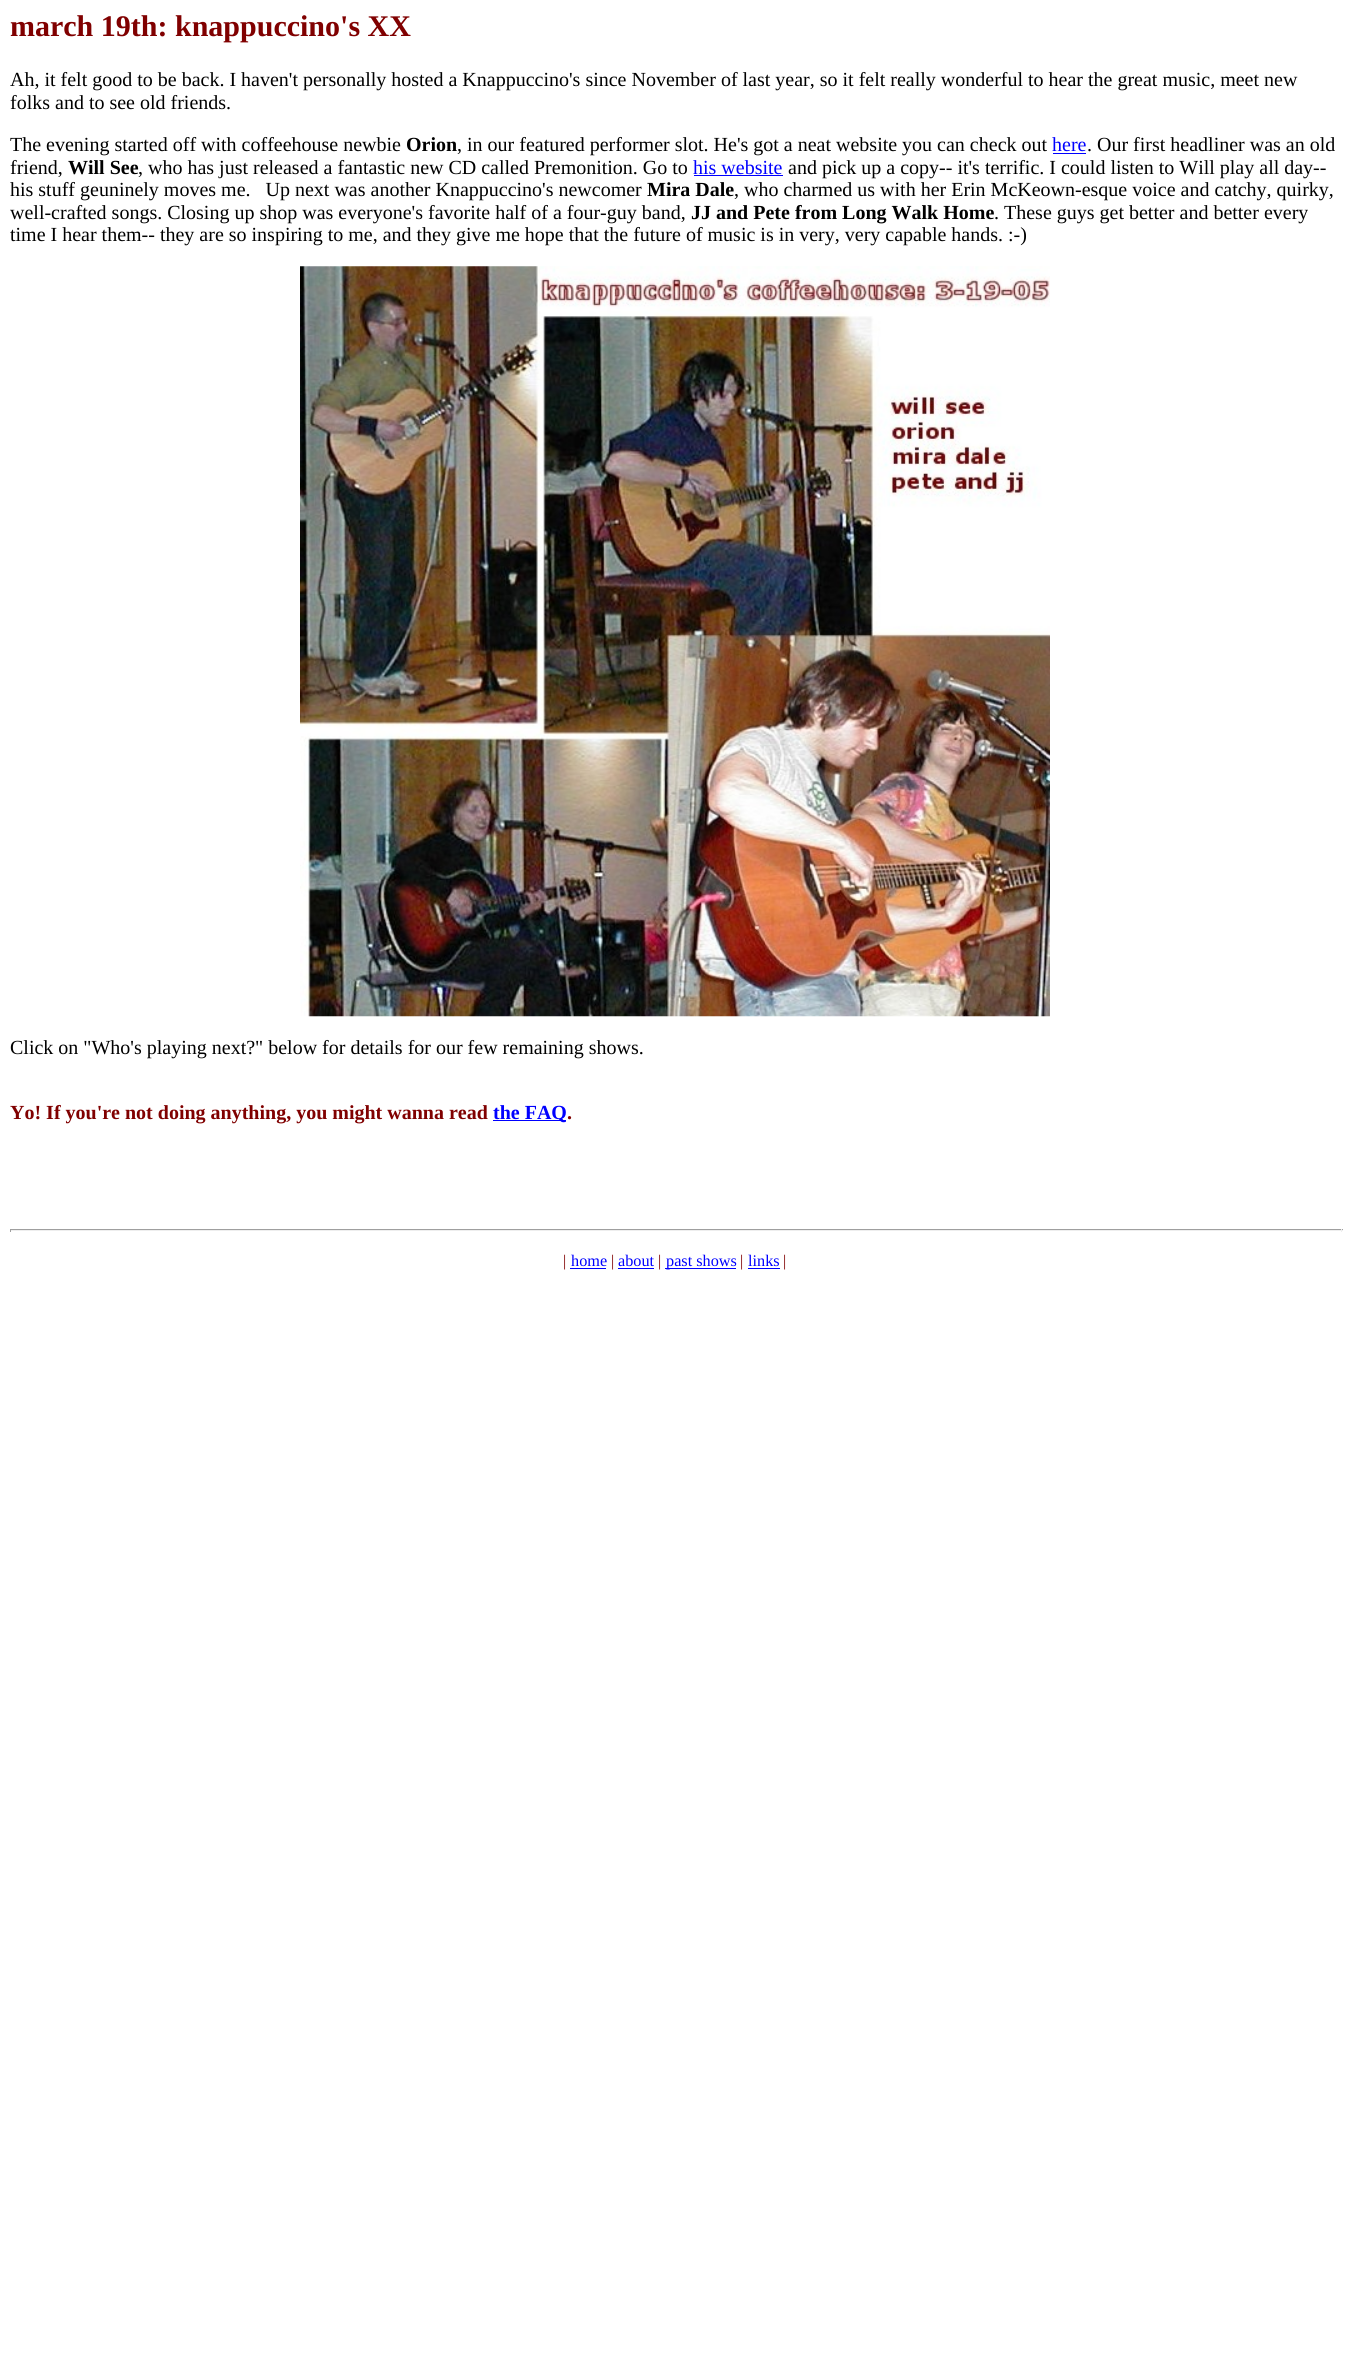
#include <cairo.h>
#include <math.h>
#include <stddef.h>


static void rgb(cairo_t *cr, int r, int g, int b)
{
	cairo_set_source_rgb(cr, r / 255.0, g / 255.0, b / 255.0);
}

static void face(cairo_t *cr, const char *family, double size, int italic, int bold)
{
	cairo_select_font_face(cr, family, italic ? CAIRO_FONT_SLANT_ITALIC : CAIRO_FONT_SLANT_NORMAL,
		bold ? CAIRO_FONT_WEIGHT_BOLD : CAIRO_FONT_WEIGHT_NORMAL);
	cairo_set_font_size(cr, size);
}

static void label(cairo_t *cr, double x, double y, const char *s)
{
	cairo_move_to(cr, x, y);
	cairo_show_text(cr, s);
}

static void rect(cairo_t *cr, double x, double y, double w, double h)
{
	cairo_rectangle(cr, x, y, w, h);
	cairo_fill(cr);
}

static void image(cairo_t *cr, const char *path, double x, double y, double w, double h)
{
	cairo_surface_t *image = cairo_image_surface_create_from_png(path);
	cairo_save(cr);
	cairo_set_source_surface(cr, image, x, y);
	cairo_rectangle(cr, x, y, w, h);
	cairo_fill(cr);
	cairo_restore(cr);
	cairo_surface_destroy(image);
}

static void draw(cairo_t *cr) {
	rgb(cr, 255, 255, 255);
	cairo_paint(cr);
	face(cr, "Liberation Serif", 30, 0, 1);
	rgb(cr, 128, 0, 0);
	label(cr, 10, 36, "march 19th: knappuccino's XX");
	face(cr, "Liberation Serif", 20, 0, 0);
	rgb(cr, 0, 0, 0);
	label(cr, 10, 86, "Ah, it felt good to be back. I haven't personally hosted a Knappuccino's since November of last year, so it felt really wonderful to hear the great music, meet new");
	label(cr, 10, 109, "folks and to see old friends.");
	label(cr, 10, 151, "The evening started off with coffeehouse newbie");
	face(cr, "Liberation Serif", 20, 0, 1);
	label(cr, 406, 151, "Orion");
	face(cr, "Liberation Serif", 20, 0, 0);
	label(cr, 457, 151, ", in our featured performer slot. He's got a neat website you can check out");
	rgb(cr, 0, 0, 255);
	label(cr, 1052, 151, "here");
	rect(cr, 1053, 153, 33, 1);
	rgb(cr, 0, 0, 0);
	label(cr, 1087, 151, ". Our first headliner was an old");
	label(cr, 10, 174, "friend,");
	face(cr, "Liberation Serif", 20, 0, 1);
	label(cr, 68, 174, "Will See");
	face(cr, "Liberation Serif", 20, 0, 0);
	label(cr, 138, 174, ", who has just released a fantastic new CD called Premonition. Go to");
	rgb(cr, 0, 0, 255);
	label(cr, 693, 174, "his website");
	rect(cr, 694, 175, 89, 1);
	rgb(cr, 0, 0, 0);
	label(cr, 788, 174, "and pick up a copy-- it's terrific. I could listen to Will play all day--");
	label(cr, 10, 196, "his stuff geuninely moves me.   Up next was another Knappuccino's newcomer");
	face(cr, "Liberation Serif", 20, 0, 1);
	label(cr, 647, 196, "Mira Dale");
	face(cr, "Liberation Serif", 20, 0, 0);
	label(cr, 734, 196, ", who charmed us with her Erin McKeown-esque voice and catchy, quirky,");
	label(cr, 10, 219, "well-crafted songs. Closing up shop was everyone's favorite half of a four-guy band,");
	face(cr, "Liberation Serif", 20, 0, 1);
	label(cr, 691, 219, "JJ and Pete from Long Walk Home");
	face(cr, "Liberation Serif", 20, 0, 0);
	label(cr, 994, 219, ". These guys get better and better every");
	label(cr, 10, 241, "time I hear them-- they are so inspiring to me, and they give me hope that the future of music is in very, very capable hands. :-)");
	image(cr, "image0.png", 300, 266, 750, 751);
	label(cr, 10, 1054, "Click on \"Who's playing next?\" below for details for our few remaining shows.");
	face(cr, "Liberation Serif", 20, 0, 1);
	rgb(cr, 128, 0, 0);
	label(cr, 10, 1119, "Yo! If you're not doing anything, you might wanna read");
	rgb(cr, 0, 0, 255);
	rect(cr, 493, 1120, 73, 1);
	label(cr, 493, 1119, "the FAQ");
	rgb(cr, 128, 0, 0);
	label(cr, 567, 1119, ".");
	rgb(cr, 159, 159, 159);
	rect(cr, 10, 1229, 1333, 1);
	rgb(cr, 238, 238, 238);
	rect(cr, 1341, 1229, 1, 3);
	rect(cr, 10, 1230, 1333, 1);
	rgb(cr, 159, 159, 159);
	rect(cr, 10, 1229, 1, 3);
	face(cr, "Liberation Serif", 16.25, 0, 0);
	rgb(cr, 128, 0, 0);
	label(cr, 563, 1266, "|");
	rgb(cr, 0, 0, 255);
	label(cr, 571, 1266, "home");
	rect(cr, 570, 1268, 36, 1);
	rgb(cr, 128, 0, 0);
	label(cr, 611, 1266, "|");
	rgb(cr, 0, 0, 255);
	label(cr, 618, 1266, "about");
	rect(cr, 618, 1268, 36, 1);
	rgb(cr, 128, 0, 0);
	label(cr, 658, 1266, "|");
	rgb(cr, 0, 0, 255);
	rect(cr, 665, 1268, 71, 1);
	label(cr, 666, 1266, "past shows");
	rgb(cr, 128, 0, 0);
	label(cr, 740, 1266, "|");
	rgb(cr, 0, 0, 255);
	label(cr, 748, 1266, "links");
	rect(cr, 748, 1268, 32, 1);
	rgb(cr, 128, 0, 0);
	label(cr, 783, 1266, "|");
}

int main(void) {
	cairo_surface_t *surface = cairo_image_surface_create(CAIRO_FORMAT_RGB24, 1349, 2371);
	cairo_t *cr = cairo_create(surface);
	cairo_font_options_t *options = cairo_font_options_create();
	cairo_font_options_set_hint_metrics(options, CAIRO_HINT_METRICS_OFF);
	cairo_font_options_set_hint_style(options, CAIRO_HINT_STYLE_NONE);
	cairo_set_font_options(cr, options);
	cairo_set_miter_limit(cr, 4);
	draw(cr);
	cairo_surface_write_to_png(surface, "render.png");
	cairo_font_options_destroy(options);
	cairo_destroy(cr);
	cairo_surface_destroy(surface);
	return 0;
}
